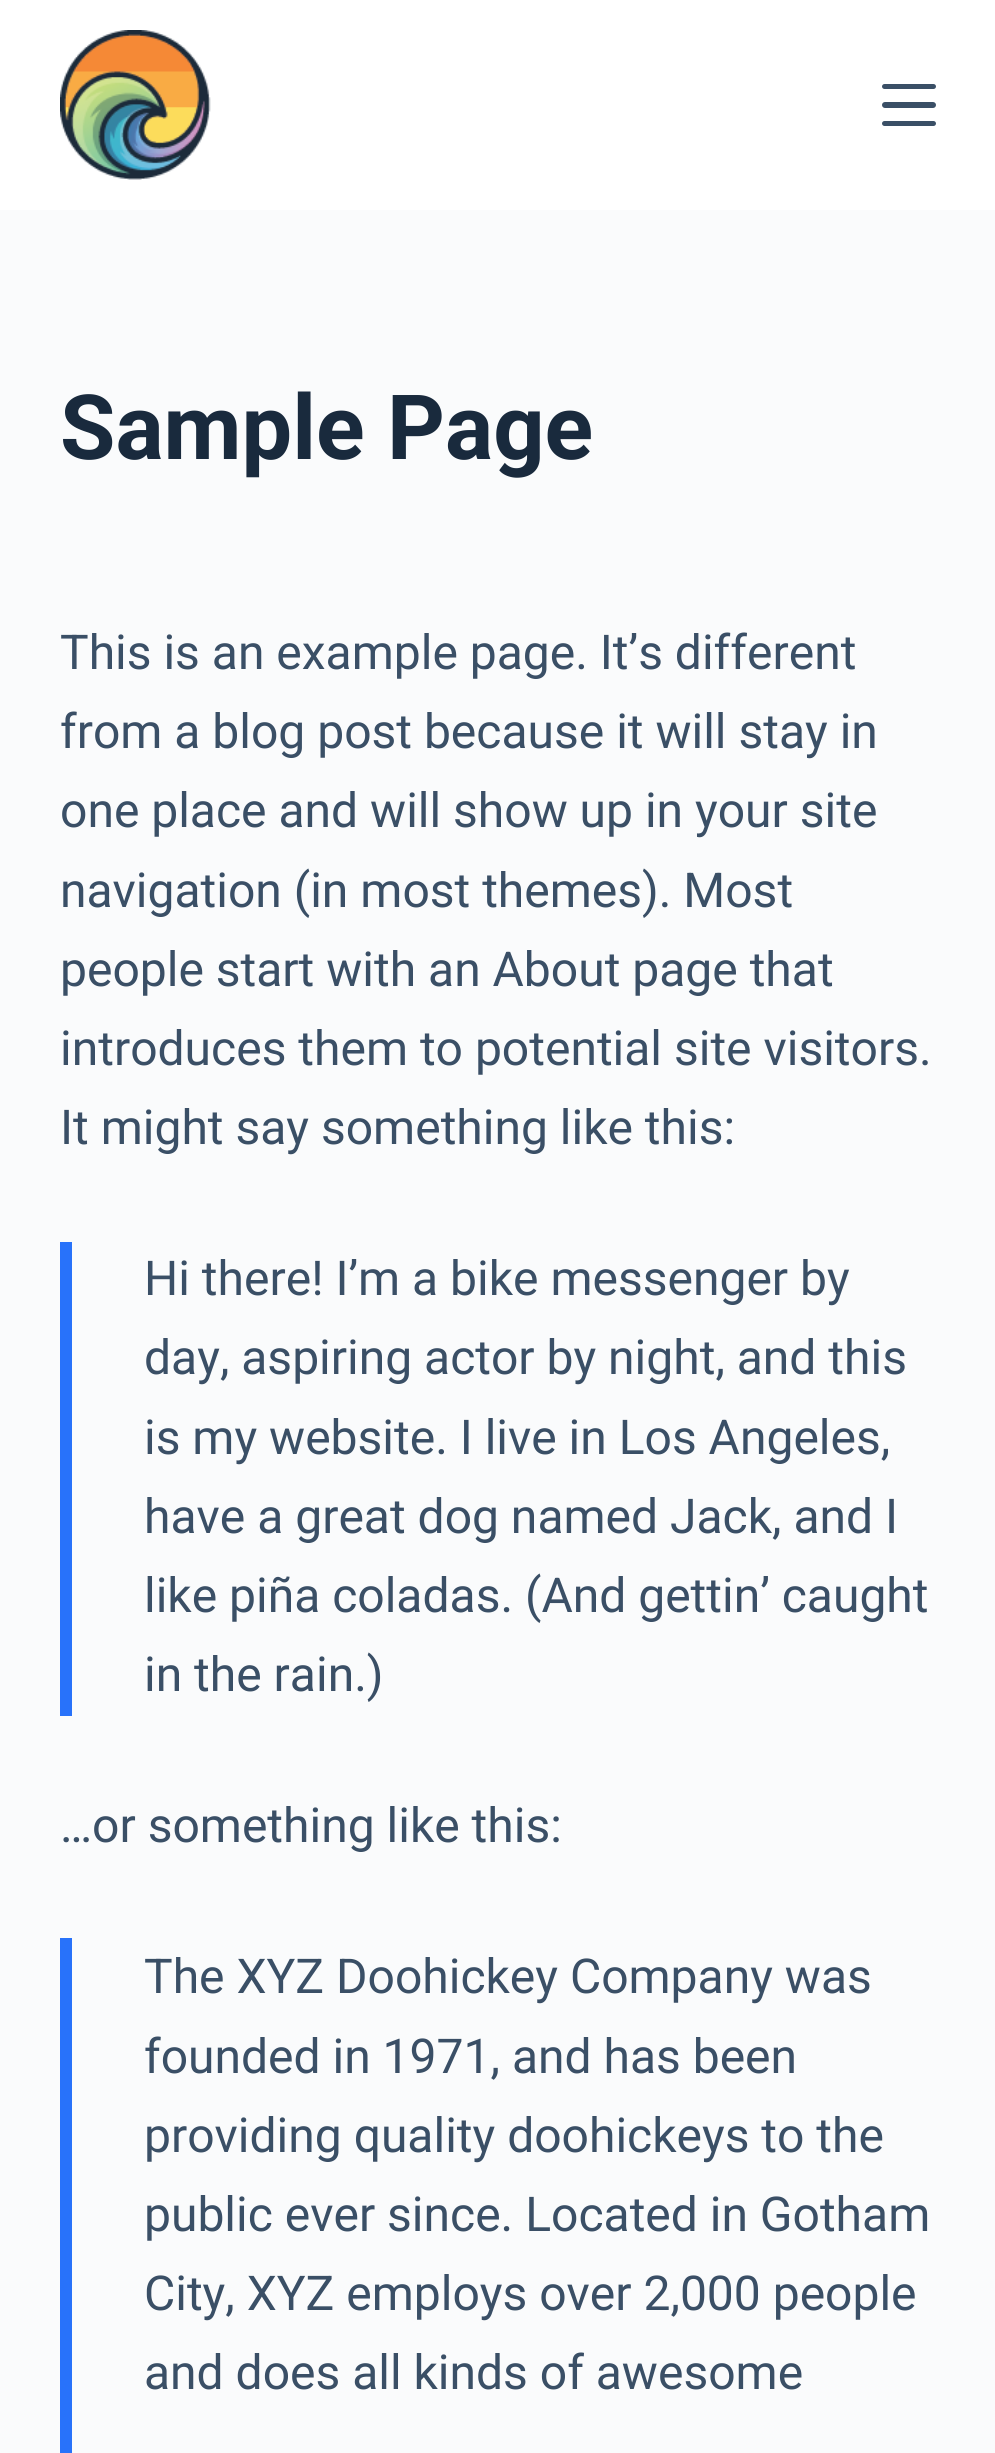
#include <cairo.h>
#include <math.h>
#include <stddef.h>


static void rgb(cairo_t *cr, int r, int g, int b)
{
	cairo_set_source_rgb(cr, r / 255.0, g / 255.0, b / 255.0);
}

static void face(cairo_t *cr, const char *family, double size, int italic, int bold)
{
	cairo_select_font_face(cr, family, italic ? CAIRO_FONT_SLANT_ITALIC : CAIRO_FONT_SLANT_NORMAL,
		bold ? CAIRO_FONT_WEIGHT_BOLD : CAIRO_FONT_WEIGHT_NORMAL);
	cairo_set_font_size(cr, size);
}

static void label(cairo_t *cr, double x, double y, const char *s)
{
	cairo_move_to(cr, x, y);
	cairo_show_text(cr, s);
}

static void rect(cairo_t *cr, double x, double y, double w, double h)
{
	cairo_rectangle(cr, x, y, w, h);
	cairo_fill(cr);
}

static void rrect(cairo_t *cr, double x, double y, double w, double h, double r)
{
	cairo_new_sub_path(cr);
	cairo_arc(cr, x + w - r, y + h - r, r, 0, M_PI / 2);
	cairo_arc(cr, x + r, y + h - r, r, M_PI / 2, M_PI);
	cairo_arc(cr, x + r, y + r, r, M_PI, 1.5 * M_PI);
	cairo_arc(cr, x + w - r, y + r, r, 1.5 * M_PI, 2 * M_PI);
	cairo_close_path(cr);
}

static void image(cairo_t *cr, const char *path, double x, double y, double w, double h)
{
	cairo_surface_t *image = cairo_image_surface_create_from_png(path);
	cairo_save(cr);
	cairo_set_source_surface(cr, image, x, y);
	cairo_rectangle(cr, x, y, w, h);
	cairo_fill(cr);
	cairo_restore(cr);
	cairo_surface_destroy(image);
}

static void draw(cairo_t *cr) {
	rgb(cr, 250, 251, 252);
	cairo_paint(cr);
	rgb(cr, 255, 255, 255);
	rect(cr, 0, 0, 995, 210);
	image(cr, "image0.png", 60, 30, 151, 150);
	rgb(cr, 58, 79, 102);
	rrect(cr, 882, 84, 54, 5, 2.5);
	cairo_fill(cr);
	rrect(cr, 882, 102, 54, 6, 3);
	cairo_fill(cr);
	rrect(cr, 882, 121, 54, 5, 2.5);
	cairo_fill(cr);
	face(cr, "Roboto", 90, 0, 1);
	rgb(cr, 25, 42, 61);
	label(cr, 60, 459, "Sample Page");
	face(cr, "Roboto", 48, 0, 0);
	rgb(cr, 58, 79, 102);
	label(cr, 60, 669, "This is an example page. It’s different");
	label(cr, 60, 748, "from a blog post because it will stay in");
	label(cr, 60, 827, "one place and will show up in your site");
	label(cr, 60, 907, "navigation (in most themes). Most");
	label(cr, 60, 986, "people start with an About page that");
	label(cr, 60, 1065, "introduces them to potential site visitors.");
	label(cr, 60, 1144, "It might say something like this:");
	rgb(cr, 40, 114, 250);
	rect(cr, 60, 1242, 12, 474);
	rgb(cr, 58, 79, 102);
	label(cr, 144, 1295, "Hi there! I’m a bike messenger by");
	label(cr, 144, 1374, "day, aspiring actor by night, and this");
	label(cr, 144, 1454, "is my website. I live in Los Angeles,");
	label(cr, 144, 1533, "have a great dog named Jack, and I");
	label(cr, 144, 1612, "like piña coladas. (And gettin’ caught");
	label(cr, 144, 1691, "in the rain.)");
	label(cr, 60, 1842, "…or something like this:");
	rgb(cr, 40, 114, 250);
	rect(cr, 60, 1938, 12, 515);
	rgb(cr, 58, 79, 102);
	label(cr, 144, 1993, "The XYZ Doohickey Company was");
	label(cr, 144, 2073, "founded in 1971, and has been");
	label(cr, 144, 2152, "providing quality doohickeys to the");
	label(cr, 144, 2231, "public ever since. Located in Gotham");
	label(cr, 144, 2310, "City, XYZ employs over 2,000 people");
	label(cr, 144, 2389, "and does all kinds of awesome");
}

int main(void) {
	cairo_surface_t *surface = cairo_image_surface_create(CAIRO_FORMAT_RGB24, 995, 2453);
	cairo_t *cr = cairo_create(surface);
	cairo_font_options_t *options = cairo_font_options_create();
	cairo_font_options_set_hint_metrics(options, CAIRO_HINT_METRICS_OFF);
	cairo_font_options_set_hint_style(options, CAIRO_HINT_STYLE_NONE);
	cairo_set_font_options(cr, options);
	cairo_set_miter_limit(cr, 4);
	draw(cr);
	cairo_surface_write_to_png(surface, "render.png");
	cairo_font_options_destroy(options);
	cairo_destroy(cr);
	cairo_surface_destroy(surface);
	return 0;
}
